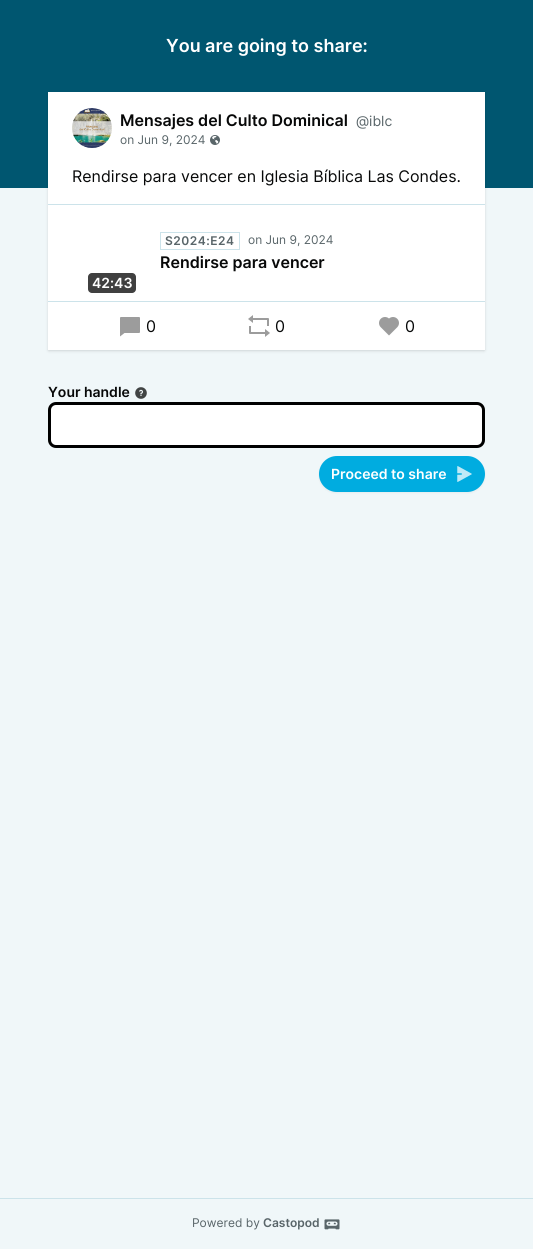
#include <cairo.h>
#include <math.h>
#include <stddef.h>


static void rgb(cairo_t *cr, int r, int g, int b)
{
	cairo_set_source_rgb(cr, r / 255.0, g / 255.0, b / 255.0);
}

static void face(cairo_t *cr, const char *family, double size, int italic, int bold)
{
	cairo_select_font_face(cr, family, italic ? CAIRO_FONT_SLANT_ITALIC : CAIRO_FONT_SLANT_NORMAL,
		bold ? CAIRO_FONT_WEIGHT_BOLD : CAIRO_FONT_WEIGHT_NORMAL);
	cairo_set_font_size(cr, size);
}

static void label(cairo_t *cr, double x, double y, const char *s)
{
	cairo_move_to(cr, x, y);
	cairo_show_text(cr, s);
}

static void tracked(cairo_t *cr, double x, double y, const char *s, double letter, double word)
{
	cairo_move_to(cr, x, y);
	while (*s) {
		char ch[5] = {0};
		int n = 0;
		do ch[n++] = *s++; while ((*s & 0xC0) == 0x80);
		cairo_show_text(cr, ch);
		cairo_rel_move_to(cr, letter + word * (*ch == ' '), 0);
	}
}

static void rect(cairo_t *cr, double x, double y, double w, double h)
{
	cairo_rectangle(cr, x, y, w, h);
	cairo_fill(cr);
}

static void rrect(cairo_t *cr, double x, double y, double w, double h, double r)
{
	cairo_new_sub_path(cr);
	cairo_arc(cr, x + w - r, y + h - r, r, 0, M_PI / 2);
	cairo_arc(cr, x + r, y + h - r, r, M_PI / 2, M_PI);
	cairo_arc(cr, x + r, y + r, r, M_PI, 1.5 * M_PI);
	cairo_arc(cr, x + w - r, y + r, r, 1.5 * M_PI, 2 * M_PI);
	cairo_close_path(cr);
}

static void soft_shadow(cairo_t *cr, double x, double y, double w, double h, double r, double blur, double alpha)
{
	cairo_push_group_with_content(cr, CAIRO_CONTENT_ALPHA);
	cairo_set_operator(cr, CAIRO_OPERATOR_SOURCE);
	for (int i = 15; i >= -15 && fmin(w, h) + blur * i / 3 > 0; i -= 2) {
		double e = blur * i / 6;
		cairo_set_source_rgba(cr, 0, 0, 0, alpha * erfc((i - 1) / 8.5) / 2);
		rrect(cr, x - e, y - e, w + 2 * e, h + 2 * e, fmax(0, fmin(r + e + blur * .6, fmin(w, h) / 2 + e)));
		cairo_fill(cr);
	}
	cairo_pattern_t *soft = cairo_pop_group(cr);
	cairo_mask(cr, soft);
	cairo_pattern_destroy(soft);
}

static void image(cairo_t *cr, const char *path, double x, double y, double w, double h)
{
	cairo_surface_t *image = cairo_image_surface_create_from_png(path);
	cairo_save(cr);
	cairo_set_source_surface(cr, image, x, y);
	cairo_rectangle(cr, x, y, w, h);
	cairo_fill(cr);
	cairo_restore(cr);
	cairo_surface_destroy(image);
}

static void draw(cairo_t *cr) {
	rgb(cr, 240, 247, 249);
	cairo_paint(cr);
	rgb(cr, 0, 86, 112);
	rect(cr, 0, 0, 533, 188);
	face(cr, "Inter SemiBold", 18, 0, 0);
	rgb(cr, 255, 255, 255);
	label(cr, 166, 52, "You are going to share:");
	rgb(cr, 0, 0, 0);
	soft_shadow(cr, 49, 94, 435, 256, 0, 1, 0.1);
	soft_shadow(cr, 48, 93, 437, 258, 0, 1.5, 0.1);
	rgb(cr, 255, 255, 255);
	rect(cr, 48, 92, 437, 258);
	image(cr, "image0.png", 72, 108, 40, 40);
	face(cr, "Inter SemiBold", 16, 0, 0);
	rgb(cr, 7, 8, 8);
	label(cr, 120, 126, "Mensajes del Culto Dominical");
	face(cr, "Inter", 14, 0, 0);
	rgb(cr, 89, 101, 105);
	label(cr, 356, 126, "@iblc");
	face(cr, "Inter", 12, 0, 0);
	label(cr, 120, 144, "on Jun 9, 2024");
	image(cr, "image1.png", 210, 135, 10, 10);
	face(cr, "Inter", 16, 0, 0);
	rgb(cr, 7, 8, 8);
	label(cr, 72, 182, "Rendirse para vencer en Iglesia Bíblica Las Condes.");
	rgb(cr, 204, 227, 234);
	rect(cr, 48, 204, 437, 1);
	rect(cr, 48, 301, 437, 1);
	cairo_rectangle(cr, 160.5, 232.5, 79, 17);
	cairo_set_line_width(cr, 1);
	cairo_stroke(cr);
	face(cr, "Inter SemiBold", 12, 0, 0);
	rgb(cr, 89, 101, 105);
	tracked(cr, 165, 245, "S2024:E24", 0.5, 0);
	face(cr, "Inter", 12, 0, 0);
	label(cr, 248, 244, "on Jun 9, 2024");
	face(cr, "Inter SemiBold", 16, 0, 0);
	rgb(cr, 7, 8, 8);
	label(cr, 160, 268, "Rendirse para vencer");
	rgb(cr, 64, 64, 64);
	rrect(cr, 88, 273, 48, 20, 4);
	cairo_fill(cr);
	face(cr, "Inter SemiBold", 14, 0, 0);
	rgb(cr, 255, 255, 255);
	label(cr, 92, 288, "42:43");
	image(cr, "image2.png", 120, 317, 20, 20);
	face(cr, "Inter", 16, 0, 0);
	rgb(cr, 7, 8, 8);
	label(cr, 146, 332, "0");
	image(cr, "image3.png", 248, 315, 22, 22);
	label(cr, 275, 332, "0");
	image(cr, "image4.png", 379, 317, 20, 19);
	label(cr, 405, 332, "0");
	face(cr, "Inter SemiBold", 14, 0, 0);
	label(cr, 48, 397, "Your handle");
	image(cr, "image5.png", 135, 387, 12, 12);
	rgb(cr, 255, 255, 255);
	rrect(cr, 49.5, 403.5, 434, 43, 6.5);
	cairo_fill_preserve(cr);
	rgb(cr, 0, 0, 0);
	cairo_set_line_width(cr, 3);
	cairo_stroke(cr);
	rgb(cr, 0, 0, 0);
	soft_shadow(cr, 319, 457, 166, 36, 18, 1, 0.05);
	rgb(cr, 0, 172, 224);
	rrect(cr, 319, 456, 166, 36, 18);
	cairo_fill(cr);
	rgb(cr, 255, 255, 255);
	label(cr, 331, 479, "Proceed to share");
	image(cr, "image6.png", 457, 466, 15, 16);
	rgb(cr, 204, 227, 234);
	rect(cr, 0, 1198, 533, 1);
	face(cr, "Inter", 12, 0, 0);
	rgb(cr, 89, 101, 105);
	label(cr, 192, 1227, "Powered by");
	face(cr, "Inter SemiBold", 12, 0, 0);
	label(cr, 263, 1227, "Castopod");
	image(cr, "image7.png", 324, 1219, 16, 11);
}

int main(void) {
	cairo_surface_t *surface = cairo_image_surface_create(CAIRO_FORMAT_RGB24, 533, 1249);
	cairo_t *cr = cairo_create(surface);
	cairo_font_options_t *options = cairo_font_options_create();
	cairo_font_options_set_hint_metrics(options, CAIRO_HINT_METRICS_OFF);
	cairo_font_options_set_hint_style(options, CAIRO_HINT_STYLE_NONE);
	cairo_set_font_options(cr, options);
	cairo_set_miter_limit(cr, 4);
	draw(cr);
	cairo_surface_write_to_png(surface, "render.png");
	cairo_font_options_destroy(options);
	cairo_destroy(cr);
	cairo_surface_destroy(surface);
	return 0;
}
